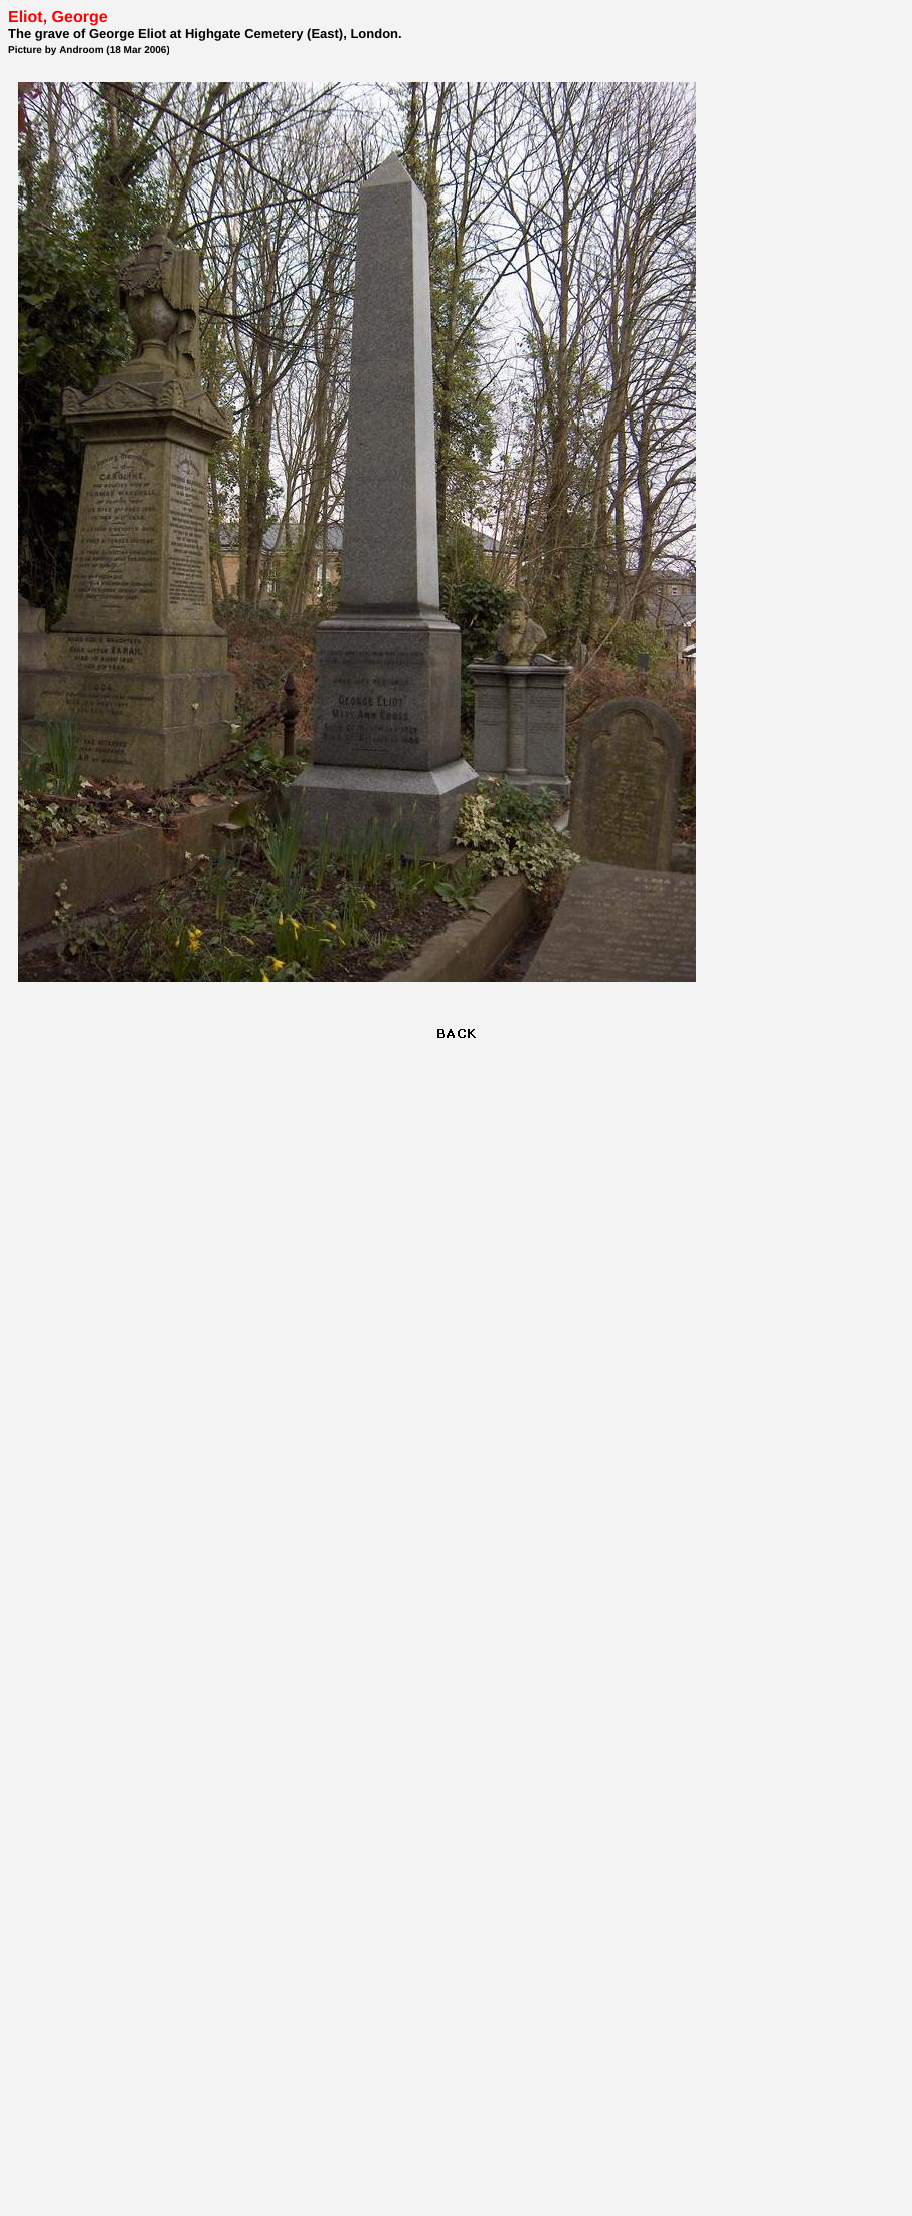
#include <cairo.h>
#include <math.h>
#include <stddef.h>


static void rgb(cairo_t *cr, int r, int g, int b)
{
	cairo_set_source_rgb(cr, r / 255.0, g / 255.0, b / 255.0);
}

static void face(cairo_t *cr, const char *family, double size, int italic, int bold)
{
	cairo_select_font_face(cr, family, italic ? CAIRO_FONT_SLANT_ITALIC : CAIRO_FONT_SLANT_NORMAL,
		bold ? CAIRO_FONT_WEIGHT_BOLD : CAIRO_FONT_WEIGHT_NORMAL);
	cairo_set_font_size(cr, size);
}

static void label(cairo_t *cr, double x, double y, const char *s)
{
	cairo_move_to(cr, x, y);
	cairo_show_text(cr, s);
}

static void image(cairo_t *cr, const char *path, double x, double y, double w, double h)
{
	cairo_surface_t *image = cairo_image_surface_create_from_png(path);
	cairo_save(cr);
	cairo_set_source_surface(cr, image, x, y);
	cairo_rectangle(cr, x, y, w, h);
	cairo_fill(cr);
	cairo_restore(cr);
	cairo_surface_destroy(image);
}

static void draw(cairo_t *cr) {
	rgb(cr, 243, 243, 243);
	cairo_paint(cr);
	face(cr, "Liberation Sans", 16, 0, 1);
	rgb(cr, 255, 0, 0);
	label(cr, 8, 22, "Eliot, George");
	face(cr, "Liberation Sans", 13, 0, 1);
	rgb(cr, 0, 0, 0);
	label(cr, 8, 38, "The grave of George Eliot at Highgate Cemetery (East), London.");
	face(cr, "Liberation Sans", 10, 0, 1);
	label(cr, 8, 53, "Picture by Androom (18 Mar 2006)");
	image(cr, "image0.png", 18, 82, 678, 900);
	image(cr, "image1.png", 437, 1029, 39, 9);
}

int main(void) {
	cairo_surface_t *surface = cairo_image_surface_create(CAIRO_FORMAT_RGB24, 912, 2216);
	cairo_t *cr = cairo_create(surface);
	cairo_font_options_t *options = cairo_font_options_create();
	cairo_font_options_set_hint_metrics(options, CAIRO_HINT_METRICS_OFF);
	cairo_font_options_set_hint_style(options, CAIRO_HINT_STYLE_NONE);
	cairo_set_font_options(cr, options);
	cairo_set_miter_limit(cr, 4);
	draw(cr);
	cairo_surface_write_to_png(surface, "render.png");
	cairo_font_options_destroy(options);
	cairo_destroy(cr);
	cairo_surface_destroy(surface);
	return 0;
}
